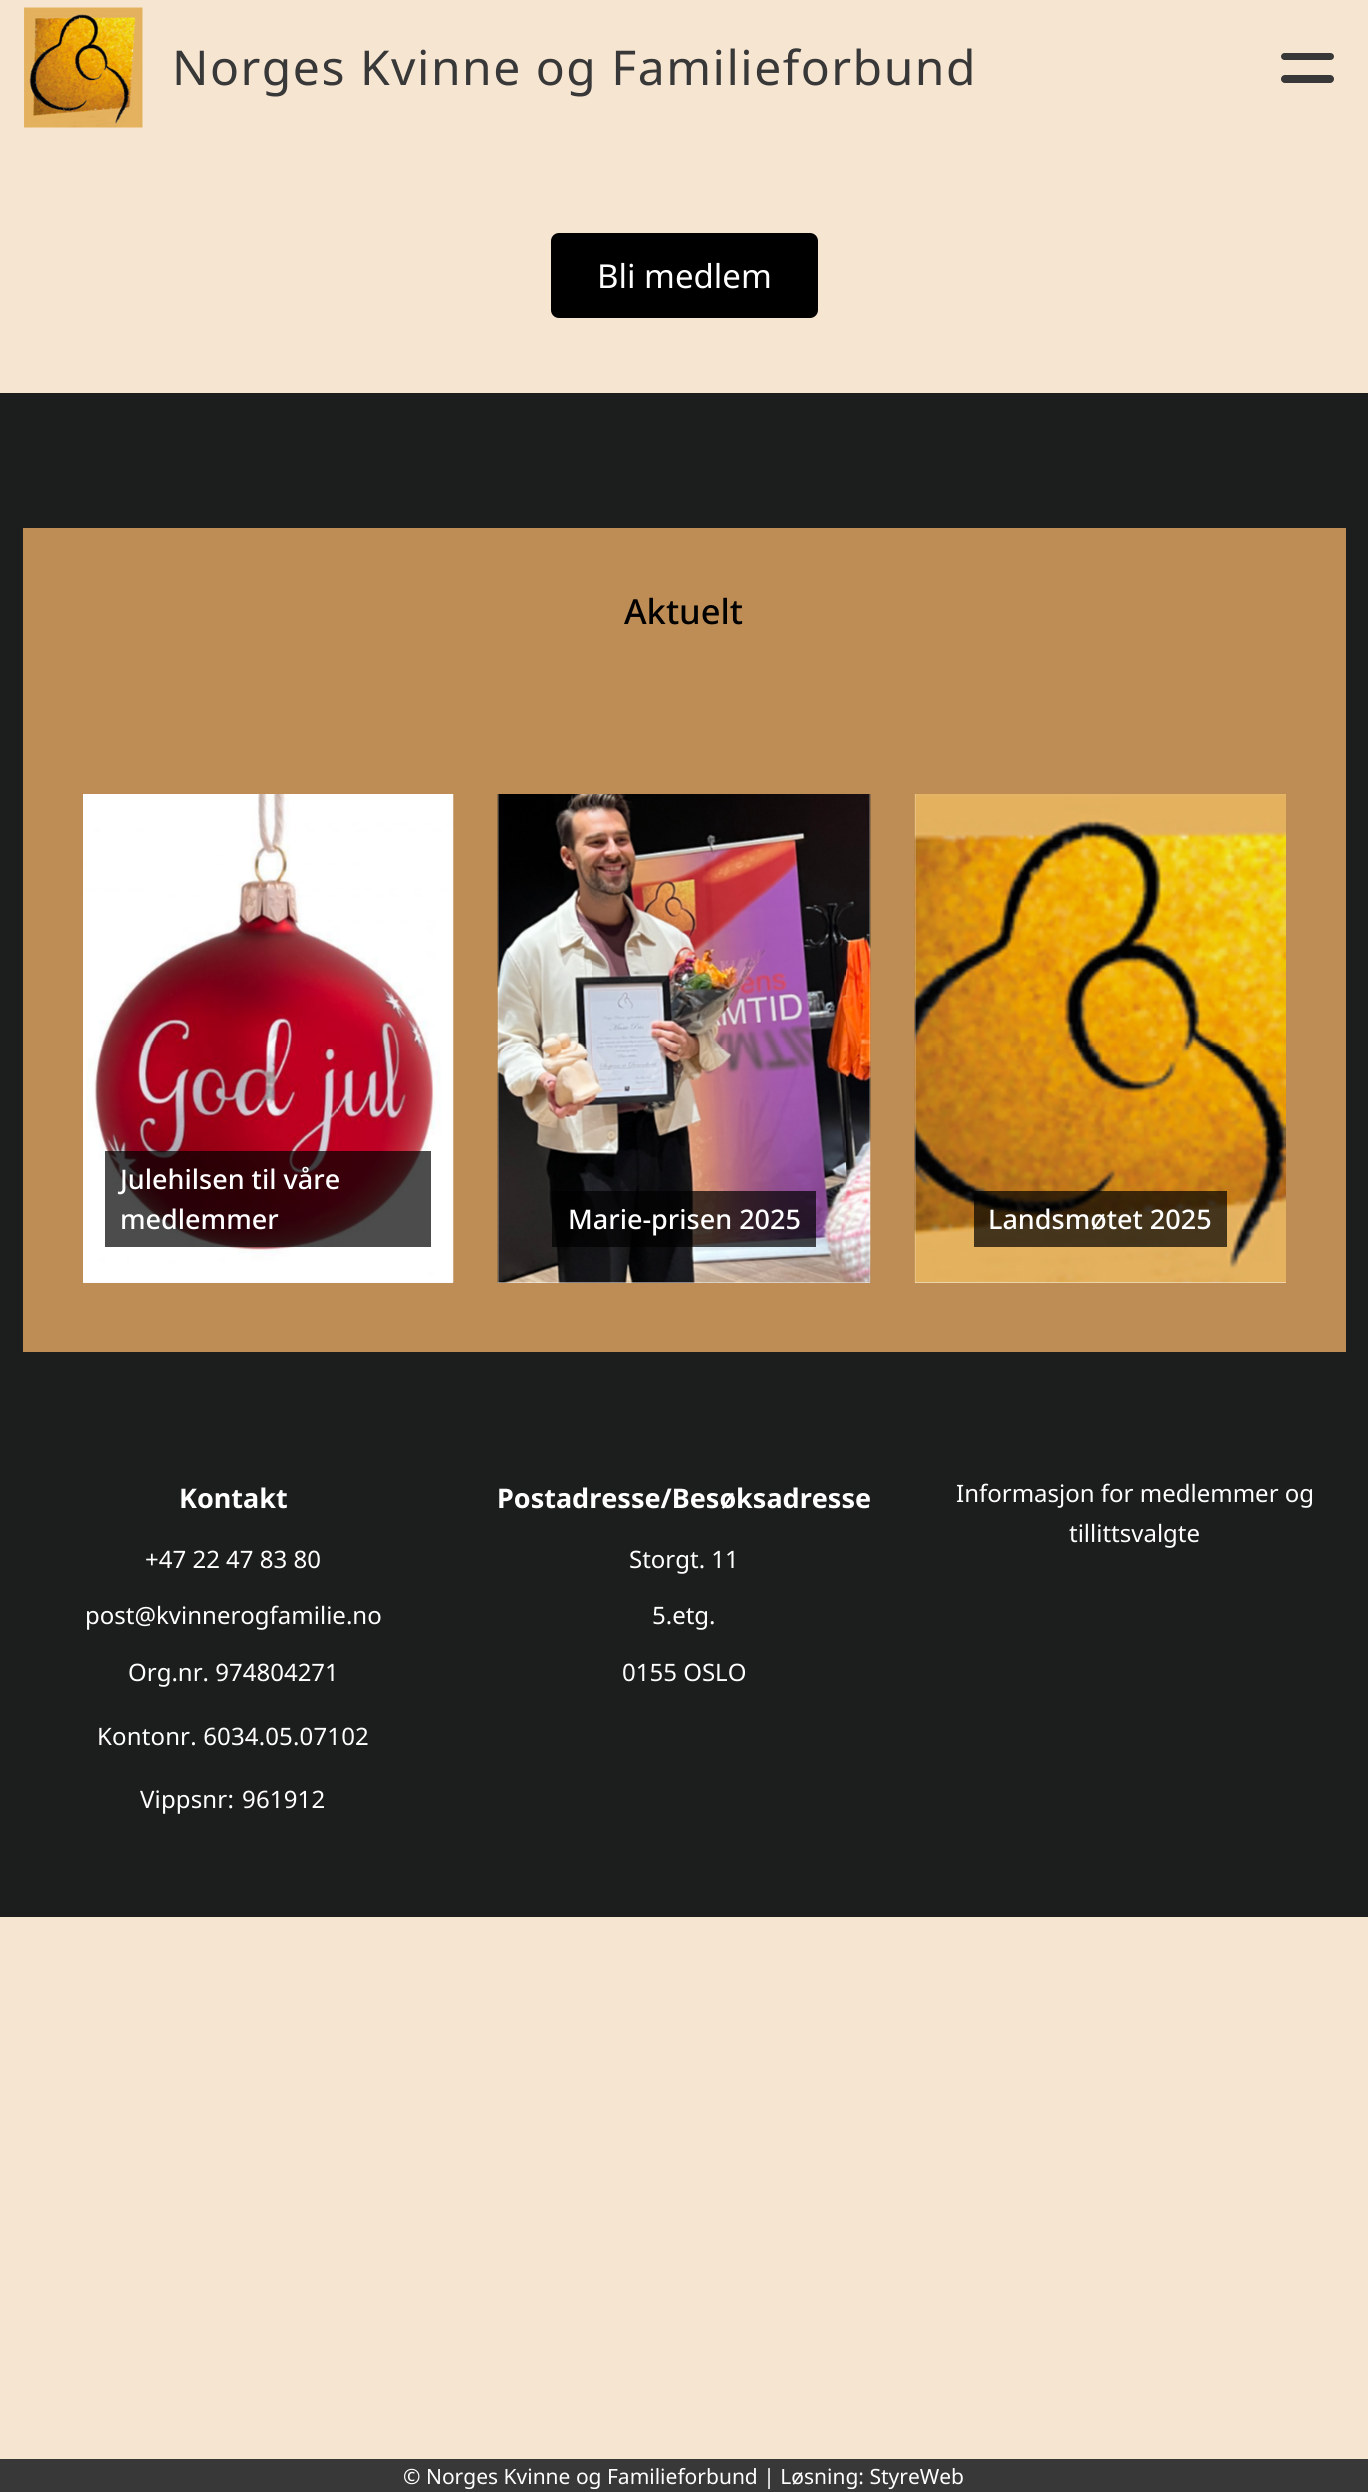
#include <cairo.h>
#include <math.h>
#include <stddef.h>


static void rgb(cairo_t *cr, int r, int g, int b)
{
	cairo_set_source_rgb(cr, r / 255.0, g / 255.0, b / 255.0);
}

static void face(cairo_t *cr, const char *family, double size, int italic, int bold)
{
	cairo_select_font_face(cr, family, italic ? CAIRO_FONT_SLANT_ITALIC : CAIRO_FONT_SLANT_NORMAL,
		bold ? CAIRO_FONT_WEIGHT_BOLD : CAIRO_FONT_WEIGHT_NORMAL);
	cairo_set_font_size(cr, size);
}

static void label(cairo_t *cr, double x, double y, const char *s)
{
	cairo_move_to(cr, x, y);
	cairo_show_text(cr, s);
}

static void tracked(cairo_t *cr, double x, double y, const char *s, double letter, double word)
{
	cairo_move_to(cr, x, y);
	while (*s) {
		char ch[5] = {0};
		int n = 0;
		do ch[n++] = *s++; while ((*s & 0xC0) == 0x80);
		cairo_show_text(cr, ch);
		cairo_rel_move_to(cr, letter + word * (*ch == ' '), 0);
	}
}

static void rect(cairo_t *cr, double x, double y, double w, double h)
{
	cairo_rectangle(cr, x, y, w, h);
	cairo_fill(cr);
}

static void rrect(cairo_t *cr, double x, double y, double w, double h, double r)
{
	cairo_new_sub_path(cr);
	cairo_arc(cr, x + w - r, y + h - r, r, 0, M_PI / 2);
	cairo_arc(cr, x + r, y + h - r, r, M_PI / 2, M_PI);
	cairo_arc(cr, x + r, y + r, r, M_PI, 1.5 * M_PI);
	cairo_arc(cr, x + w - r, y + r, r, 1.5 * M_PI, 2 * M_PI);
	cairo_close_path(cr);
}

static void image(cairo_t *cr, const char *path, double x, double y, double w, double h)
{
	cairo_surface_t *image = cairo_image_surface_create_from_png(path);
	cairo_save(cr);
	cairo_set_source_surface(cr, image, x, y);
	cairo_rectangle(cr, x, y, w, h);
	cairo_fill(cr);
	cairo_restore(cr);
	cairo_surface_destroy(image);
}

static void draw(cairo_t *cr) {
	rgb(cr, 246, 229, 209);
	cairo_paint(cr);
	image(cr, "image0.png", 24, 7, 119, 121);
	face(cr, "Noto Sans", 48, 0, 0);
	rgb(cr, 56, 56, 56);
	tracked(cr, 172, 85, "Norges Kvinne og Familieforbund", 1.5, 0);
	rrect(cr, 1281, 53, 53, 7, 3.5);
	cairo_fill(cr);
	rrect(cr, 1281, 75, 53, 8, 4);
	cairo_fill(cr);
	rgb(cr, 0, 0, 0);
	rrect(cr, 552, 234, 265, 83, 7);
	cairo_fill_preserve(cr);
	cairo_stroke(cr);
	face(cr, "Noto Sans", 33, 0, 0);
	rgb(cr, 255, 255, 255);
	label(cr, 597, 288, "Bli medlem");
	rgb(cr, 27, 30, 29);
	rect(cr, 0, 393, 1368, 1524);
	rgb(cr, 190, 141, 85);
	rect(cr, 23, 528, 1323, 824);
	face(cr, "Noto Sans Medium", 34.5, 0, 0);
	rgb(cr, 0, 0, 0);
	label(cr, 624, 624, "Aktuelt");
	rgb(cr, 245, 245, 245);
	rect(cr, 83, 794, 370, 489);
	image(cr, "image1.png", 83, 794, 371, 489);
	cairo_set_source_rgba(cr, 0, 0, 0, 0.7);
	rect(cr, 105, 1151, 326, 96);
	face(cr, "Noto Sans Medium", 27, 0, 0);
	rgb(cr, 255, 255, 255);
	label(cr, 120, 1189, "Julehilsen til våre");
	label(cr, 120, 1229, "medlemmer");
	rgb(cr, 245, 245, 245);
	rect(cr, 498, 794, 372, 489);
	image(cr, "image2.png", 497, 794, 374, 489);
	cairo_set_source_rgba(cr, 0, 0, 0, 0.7);
	rect(cr, 552, 1191, 264, 56);
	rgb(cr, 255, 255, 255);
	label(cr, 568, 1229, "Marie-prisen 2025");
	rgb(cr, 245, 245, 245);
	rect(cr, 915, 794, 371, 489);
	image(cr, "image3.png", 914, 794, 372, 489);
	cairo_set_source_rgba(cr, 0, 0, 0, 0.7);
	rect(cr, 974, 1191, 253, 56);
	rgb(cr, 255, 255, 255);
	label(cr, 988, 1229, "Landsmøtet 2025");
	face(cr, "Noto Sans", 27, 0, 1);
	label(cr, 179, 1508, "Kontakt");
	face(cr, "Noto Sans", 24, 0, 0);
	label(cr, 145, 1568, "+47 22 47 83 80");
	label(cr, 85, 1624, "post@kvinnerogfamilie.no");
	label(cr, 128, 1681, "Org.nr. 974804271");
	tracked(cr, 97, 1745, "Kontonr. 6034.05.07102", 0.15, 0);
	tracked(cr, 140, 1808, "Vippsnr:", 0.15, 0);
	tracked(cr, 242, 1808, "961912", 0.15, 0);
	face(cr, "Noto Sans", 27, 0, 1);
	label(cr, 497, 1508, "Postadresse/Besøksadresse");
	face(cr, "Noto Sans", 24, 0, 0);
	label(cr, 629, 1568, "Storgt. 11");
	label(cr, 652, 1624, "5.etg.");
	label(cr, 622, 1681, "0155 OSLO");
	label(cr, 956, 1502, "Informasjon for medlemmer og");
	label(cr, 1069, 1542, "tillittsvalgte");
	rgb(cr, 56, 56, 56);
	rect(cr, 0, 2459, 1368, 33);
	face(cr, "Noto Sans", 21, 0, 0);
	rgb(cr, 255, 255, 255);
	label(cr, 403, 2484, "© Norges Kvinne og Familieforbund | Løsning: StyreWeb");
}

int main(void) {
	cairo_surface_t *surface = cairo_image_surface_create(CAIRO_FORMAT_RGB24, 1368, 2492);
	cairo_t *cr = cairo_create(surface);
	cairo_font_options_t *options = cairo_font_options_create();
	cairo_font_options_set_hint_metrics(options, CAIRO_HINT_METRICS_OFF);
	cairo_font_options_set_hint_style(options, CAIRO_HINT_STYLE_NONE);
	cairo_set_font_options(cr, options);
	cairo_set_miter_limit(cr, 4);
	draw(cr);
	cairo_surface_write_to_png(surface, "render.png");
	cairo_font_options_destroy(options);
	cairo_destroy(cr);
	cairo_surface_destroy(surface);
	return 0;
}
